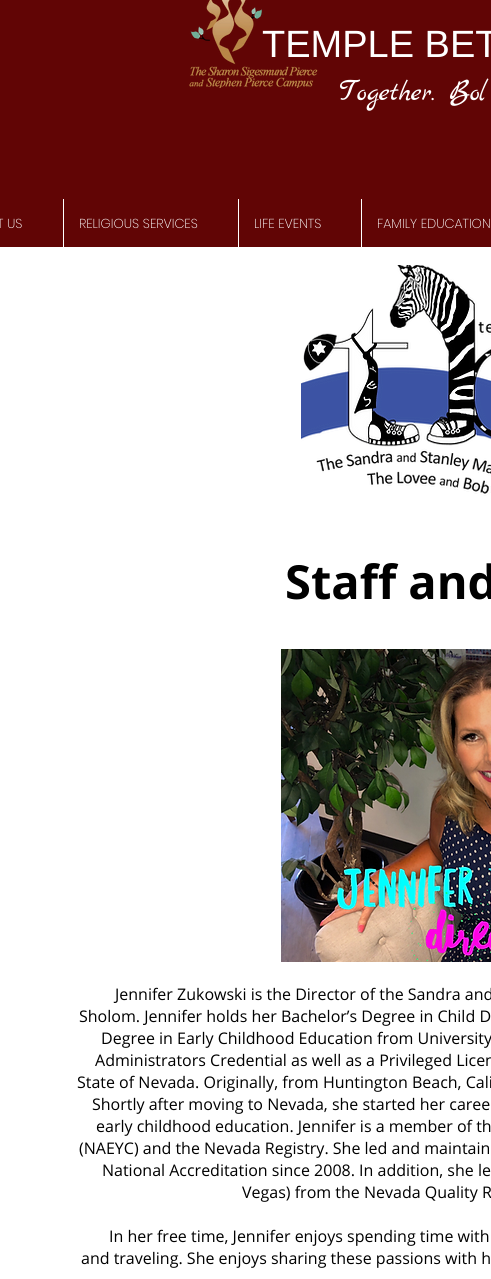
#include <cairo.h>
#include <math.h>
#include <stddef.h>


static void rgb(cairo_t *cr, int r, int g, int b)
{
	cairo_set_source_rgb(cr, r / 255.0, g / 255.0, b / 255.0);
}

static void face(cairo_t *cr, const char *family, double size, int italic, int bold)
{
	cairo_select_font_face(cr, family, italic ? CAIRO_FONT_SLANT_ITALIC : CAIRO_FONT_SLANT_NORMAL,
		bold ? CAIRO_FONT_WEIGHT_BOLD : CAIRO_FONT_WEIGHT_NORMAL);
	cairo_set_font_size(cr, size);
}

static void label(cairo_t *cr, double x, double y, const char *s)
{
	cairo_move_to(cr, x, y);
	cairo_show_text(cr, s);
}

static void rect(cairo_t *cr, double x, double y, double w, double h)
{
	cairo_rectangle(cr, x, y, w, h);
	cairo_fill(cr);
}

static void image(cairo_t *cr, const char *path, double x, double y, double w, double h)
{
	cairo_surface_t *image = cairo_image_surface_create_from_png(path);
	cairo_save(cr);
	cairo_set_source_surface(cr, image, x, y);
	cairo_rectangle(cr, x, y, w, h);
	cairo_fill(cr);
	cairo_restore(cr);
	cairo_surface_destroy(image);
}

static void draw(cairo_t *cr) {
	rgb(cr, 97, 5, 5);
	cairo_paint(cr);
	image(cr, "image0.png", 189, 0, 129, 88);
	face(cr, "Liberation Sans", 38, 0, 0);
	rgb(cr, 255, 255, 255);
	label(cr, 262, 57, "TEMPLE BET");
	face(cr, "Marck Script", 32, 0, 0);
	label(cr, 339, 100, "T");
	face(cr, "Marck Script", 28, 0, 0);
	label(cr, 357, 100, "ogether.");
	face(cr, "Marck Script", 32, 0, 0);
	label(cr, 449, 100, "B");
	face(cr, "Marck Script", 28, 0, 0);
	label(cr, 470, 100, "ol");
	face(cr, "Poppins ExtraLight", 13, 0, 0);
	label(cr, -3, 228, "T US");
	rect(cr, 0, 247, 491, 1032);
	rect(cr, 63, 199, 1, 50);
	label(cr, 79, 228, "RELIGIOUS SERVICES");
	rect(cr, 238, 199, 1, 50);
	label(cr, 254, 228, "LIFE EVENTS");
	rect(cr, 361, 199, 1, 50);
	label(cr, 377, 228, "FAMILY EDUCATION");
	image(cr, "image1.png", 301, 265, 190, 231);
	face(cr, "Open Sans", 47, 0, 1);
	rgb(cr, 0, 0, 0);
	label(cr, 285, 599, "Staff and");
	image(cr, "image2.png", 281, 649, 210, 313);
	face(cr, "Open Sans", 16, 0, 0);
	label(cr, 115, 1000, "Jennifer Zukowski is the Director of the Sandra and");
	label(cr, 79, 1022, "Sholom. Jennifer holds her Bachelor’s Degree in Child D");
	label(cr, 101, 1044, "Degree in Early Childhood Education from University");
	label(cr, 95, 1066, "Administrators Credential as well as a Privileged Licen");
	label(cr, 77, 1088, "State of Nevada. Originally, from Huntington Beach, Cali");
	label(cr, 92, 1110, "Shortly after moving to Nevada, she started her caree");
	label(cr, 96, 1132, "early childhood education. Jennifer is a member of th");
	label(cr, 79, 1154, "(NAEYC) and the Nevada Registry. She led and maintain");
	label(cr, 102, 1176, "National Accreditation since 2008. In addition, she le");
	label(cr, 242, 1198, "Vegas) from the Nevada Quality R");
	label(cr, 109, 1242, "In her free time, Jennifer enjoys spending time with");
	label(cr, 81, 1264, "and traveling. She enjoys sharing these passions with h");
}

int main(void) {
	cairo_surface_t *surface = cairo_image_surface_create(CAIRO_FORMAT_RGB24, 491, 1279);
	cairo_t *cr = cairo_create(surface);
	cairo_font_options_t *options = cairo_font_options_create();
	cairo_font_options_set_hint_metrics(options, CAIRO_HINT_METRICS_OFF);
	cairo_font_options_set_hint_style(options, CAIRO_HINT_STYLE_NONE);
	cairo_set_font_options(cr, options);
	cairo_set_miter_limit(cr, 4);
	draw(cr);
	cairo_surface_write_to_png(surface, "render.png");
	cairo_font_options_destroy(options);
	cairo_destroy(cr);
	cairo_surface_destroy(surface);
	return 0;
}
